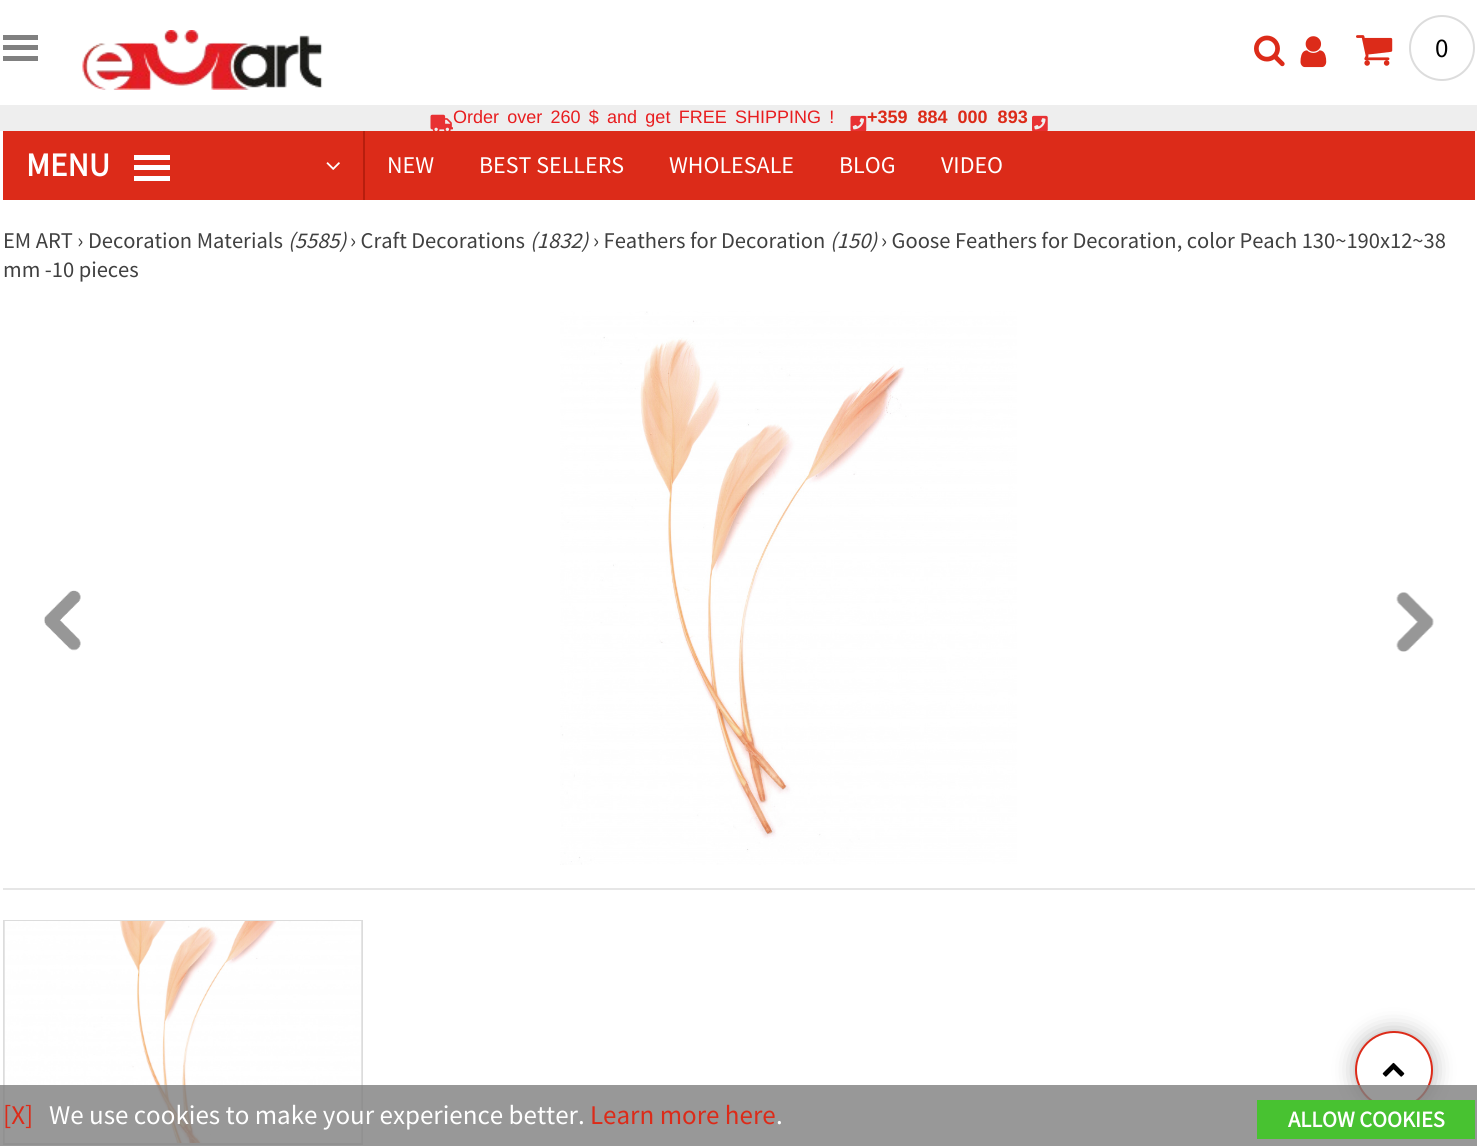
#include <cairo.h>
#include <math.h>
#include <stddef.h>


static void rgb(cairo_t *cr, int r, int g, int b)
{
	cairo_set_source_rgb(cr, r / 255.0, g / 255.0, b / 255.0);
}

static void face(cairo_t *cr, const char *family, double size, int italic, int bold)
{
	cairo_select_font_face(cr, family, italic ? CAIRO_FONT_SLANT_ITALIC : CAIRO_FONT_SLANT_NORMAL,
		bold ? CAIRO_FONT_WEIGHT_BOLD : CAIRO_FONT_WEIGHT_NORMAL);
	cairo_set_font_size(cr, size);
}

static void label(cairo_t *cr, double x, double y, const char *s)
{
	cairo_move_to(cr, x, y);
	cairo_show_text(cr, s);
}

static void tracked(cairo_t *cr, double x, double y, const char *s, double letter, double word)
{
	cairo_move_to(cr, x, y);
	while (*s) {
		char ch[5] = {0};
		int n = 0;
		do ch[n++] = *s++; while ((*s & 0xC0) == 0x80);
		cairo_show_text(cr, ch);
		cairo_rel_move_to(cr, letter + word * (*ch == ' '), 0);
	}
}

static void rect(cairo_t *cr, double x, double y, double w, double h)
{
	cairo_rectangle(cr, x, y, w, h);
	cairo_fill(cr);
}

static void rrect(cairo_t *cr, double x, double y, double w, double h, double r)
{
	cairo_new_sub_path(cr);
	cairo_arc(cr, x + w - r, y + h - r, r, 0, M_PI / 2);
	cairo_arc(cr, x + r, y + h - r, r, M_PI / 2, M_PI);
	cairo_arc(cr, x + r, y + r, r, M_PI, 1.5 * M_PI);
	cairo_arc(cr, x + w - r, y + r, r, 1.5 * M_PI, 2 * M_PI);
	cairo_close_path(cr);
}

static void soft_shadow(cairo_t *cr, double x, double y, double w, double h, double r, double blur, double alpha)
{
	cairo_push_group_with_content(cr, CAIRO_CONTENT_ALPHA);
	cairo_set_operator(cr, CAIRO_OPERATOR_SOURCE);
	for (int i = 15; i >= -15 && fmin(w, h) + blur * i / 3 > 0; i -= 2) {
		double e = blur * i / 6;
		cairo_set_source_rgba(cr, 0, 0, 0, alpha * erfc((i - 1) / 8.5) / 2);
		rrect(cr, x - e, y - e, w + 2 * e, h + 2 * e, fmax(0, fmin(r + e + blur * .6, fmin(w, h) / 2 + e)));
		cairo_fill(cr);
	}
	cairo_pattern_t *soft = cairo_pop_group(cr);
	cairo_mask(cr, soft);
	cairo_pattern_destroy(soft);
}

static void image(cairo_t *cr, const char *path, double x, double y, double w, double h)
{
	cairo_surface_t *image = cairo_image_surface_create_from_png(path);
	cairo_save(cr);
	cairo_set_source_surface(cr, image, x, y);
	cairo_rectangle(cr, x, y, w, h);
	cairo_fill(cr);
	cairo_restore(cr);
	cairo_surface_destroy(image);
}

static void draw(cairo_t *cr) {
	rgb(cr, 255, 255, 255);
	cairo_paint(cr);
	rgb(cr, 128, 128, 128);
	rect(cr, 3, 45, 35, 5);
	rect(cr, 3, 35, 35, 5);
	rect(cr, 3, 56, 35, 5);
	image(cr, "image0.png", 82, 30, 241, 60);
	image(cr, "image1.png", 1254, 35, 31, 32);
	image(cr, "image2.png", 1300, 36, 27, 32);
	image(cr, "image3.png", 1356, 35, 37, 31);
	cairo_arc(cr, 1442, 48, 32, 0, 2 * M_PI);
	rgb(cr, 220, 220, 220);
	cairo_stroke(cr);
	face(cr, "Source Sans Pro", 27, 0, 0);
	rgb(cr, 0, 0, 0);
	label(cr, 1435, 57, "0");
	rgb(cr, 238, 238, 238);
	rect(cr, 0, 105, 1477, 26);
	image(cr, "image4.png", 430, 114, 23, 17);
	face(cr, "Liberation Sans", 18, 0, 0);
	rgb(cr, 232, 29, 31);
	tracked(cr, 453, 123, "Order over 260 $ and get FREE SHIPPING !", 0, 3.25);
	image(cr, "image5.png", 850, 115, 17, 16);
	face(cr, "Liberation Sans", 18, 0, 1);
	rgb(cr, 220, 43, 25);
	tracked(cr, 867, 123, "+359 884 000 893", 0, 5);
	image(cr, "image6.png", 1032, 115, 16, 16);
	rect(cr, 3, 131, 1472, 69);
	rgb(cr, 183, 30, 14);
	rect(cr, 363, 131, 2, 69);
	face(cr, "Source Sans Pro", 33, 0, 1);
	rgb(cr, 255, 255, 255);
	label(cr, 26, 176, "MENU");
	rect(cr, 134, 165, 36, 5);
	rect(cr, 134, 155, 36, 5);
	rect(cr, 134, 176, 36, 5);
	image(cr, "image7.png", 326, 162, 14, 8);
	face(cr, "Source Sans Pro", 24, 0, 0);
	label(cr, 387, 173, "NEW");
	label(cr, 479, 173, "BEST SELLERS");
	label(cr, 669, 173, "WHOLESALE");
	label(cr, 839, 173, "BLOG");
	label(cr, 941, 173, "VIDEO");
	face(cr, "Source Sans Pro", 22.5, 0, 0);
	rgb(cr, 64, 64, 64);
	label(cr, 3, 248, "EM ART › Decoration Materials");
	face(cr, "Source Sans Pro", 22.5, 1, 0);
	label(cr, 288, 248, "(5585)");
	face(cr, "Source Sans Pro", 22.5, 0, 0);
	label(cr, 350, 248, "› Craft Decorations");
	face(cr, "Source Sans Pro", 22.5, 1, 0);
	label(cr, 530, 248, "(1832)");
	face(cr, "Source Sans Pro", 22.5, 0, 0);
	label(cr, 593, 248, "› Feathers for Decoration");
	face(cr, "Source Sans Pro", 22.5, 1, 0);
	label(cr, 830, 248, "(150)");
	face(cr, "Source Sans Pro", 22.5, 0, 0);
	label(cr, 881, 248, "› Goose Feathers for Decoration, color Peach 130~190x12~38");
	label(cr, 3, 277, "mm -10 pieces");
	image(cr, "image8.png", 560, 311, 457, 554);
	rgb(cr, 230, 230, 230);
	rect(cr, 3, 888, 1472, 2);
	cairo_rectangle(cr, 4, 921, 358, 223);
	rgb(cr, 220, 220, 220);
	cairo_stroke(cr);
	image(cr, "image9.png", 4, 921, 358, 222);
	image(cr, "image10.png", 44, 590, 37, 61);
	image(cr, "image11.png", 1396, 592, 38, 60);
	rgb(cr, 0, 0, 0);
	soft_shadow(cr, 1355, 1031, 78, 78, 39, 11, 0.3);
	rgb(cr, 255, 255, 255);
	cairo_arc(cr, 1394, 1070, 38, 0, 2 * M_PI);
	cairo_fill_preserve(cr);
	rgb(cr, 220, 43, 25);
	cairo_stroke(cr);
	image(cr, "image12.png", 1382, 1062, 23, 15);
	cairo_set_source_rgba(cr, 0.498, 0.498, 0.498, 0.8);
	rect(cr, 0, 1085, 1477, 61);
	face(cr, "Source Sans Pro", 27, 0, 0);
	rgb(cr, 220, 43, 25);
	label(cr, 3, 1124, "[X]");
	rgb(cr, 255, 255, 255);
	label(cr, 49, 1124, "We use cookies to make your experience better.");
	rgb(cr, 220, 43, 25);
	label(cr, 590, 1124, "Learn more here");
	rgb(cr, 255, 255, 255);
	label(cr, 776, 1124, ".");
	rgb(cr, 72, 194, 49);
	rect(cr, 1257, 1100, 218, 39);
	face(cr, "Source Sans Pro", 22.5, 0, 1);
	rgb(cr, 255, 255, 255);
	label(cr, 1288, 1127, "ALLOW COOKIES");
}

int main(void) {
	cairo_surface_t *surface = cairo_image_surface_create(CAIRO_FORMAT_RGB24, 1477, 1146);
	cairo_t *cr = cairo_create(surface);
	cairo_font_options_t *options = cairo_font_options_create();
	cairo_font_options_set_hint_metrics(options, CAIRO_HINT_METRICS_OFF);
	cairo_font_options_set_hint_style(options, CAIRO_HINT_STYLE_NONE);
	cairo_set_font_options(cr, options);
	cairo_set_miter_limit(cr, 4);
	draw(cr);
	cairo_surface_write_to_png(surface, "render.png");
	cairo_font_options_destroy(options);
	cairo_destroy(cr);
	cairo_surface_destroy(surface);
	return 0;
}
